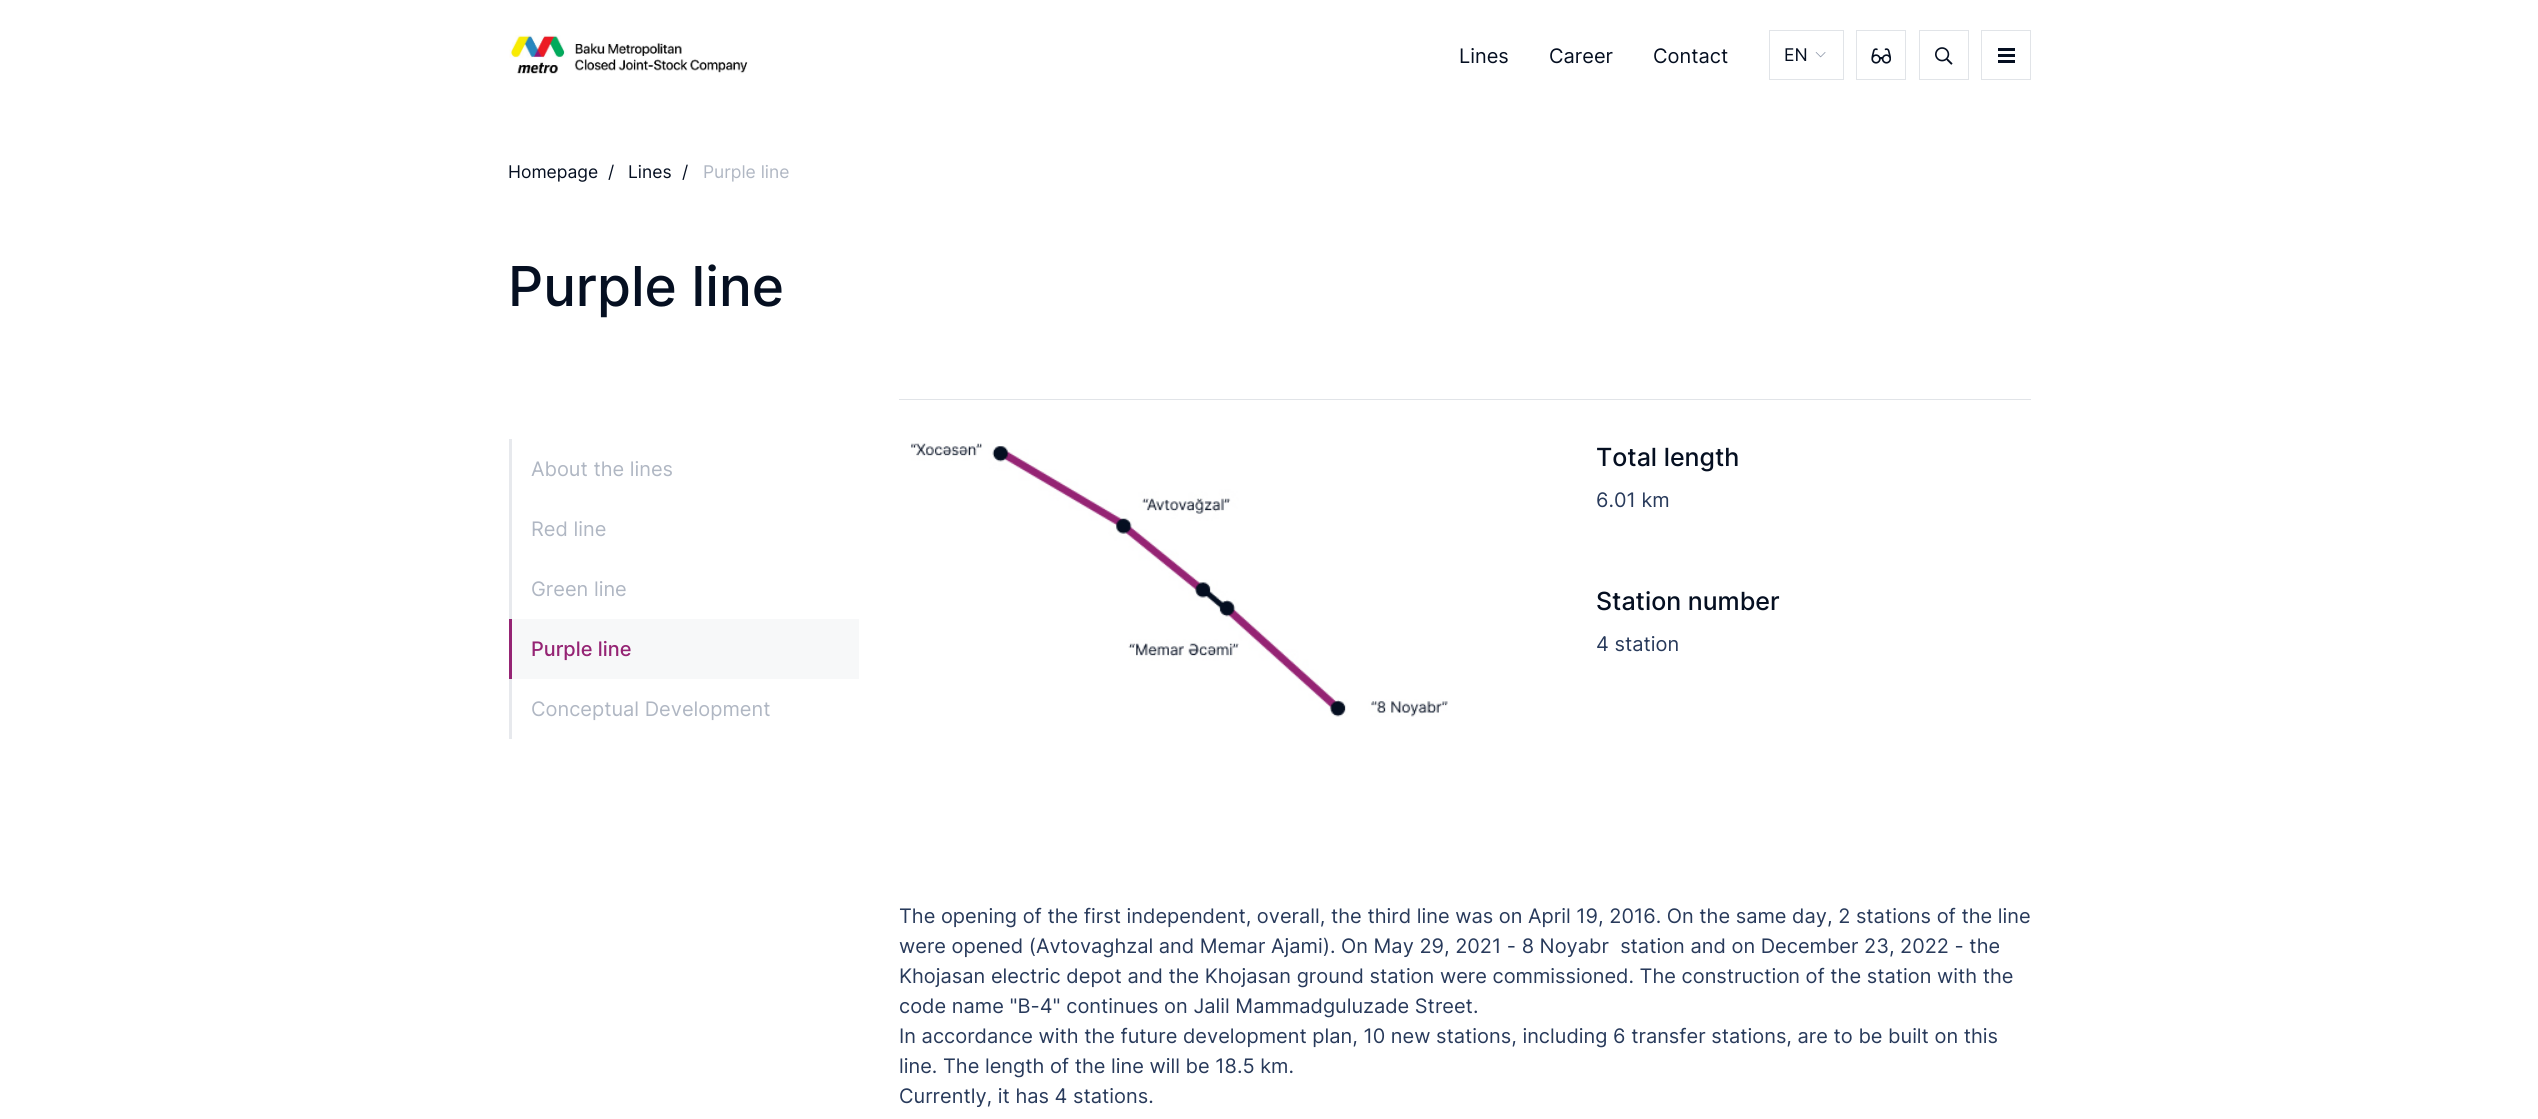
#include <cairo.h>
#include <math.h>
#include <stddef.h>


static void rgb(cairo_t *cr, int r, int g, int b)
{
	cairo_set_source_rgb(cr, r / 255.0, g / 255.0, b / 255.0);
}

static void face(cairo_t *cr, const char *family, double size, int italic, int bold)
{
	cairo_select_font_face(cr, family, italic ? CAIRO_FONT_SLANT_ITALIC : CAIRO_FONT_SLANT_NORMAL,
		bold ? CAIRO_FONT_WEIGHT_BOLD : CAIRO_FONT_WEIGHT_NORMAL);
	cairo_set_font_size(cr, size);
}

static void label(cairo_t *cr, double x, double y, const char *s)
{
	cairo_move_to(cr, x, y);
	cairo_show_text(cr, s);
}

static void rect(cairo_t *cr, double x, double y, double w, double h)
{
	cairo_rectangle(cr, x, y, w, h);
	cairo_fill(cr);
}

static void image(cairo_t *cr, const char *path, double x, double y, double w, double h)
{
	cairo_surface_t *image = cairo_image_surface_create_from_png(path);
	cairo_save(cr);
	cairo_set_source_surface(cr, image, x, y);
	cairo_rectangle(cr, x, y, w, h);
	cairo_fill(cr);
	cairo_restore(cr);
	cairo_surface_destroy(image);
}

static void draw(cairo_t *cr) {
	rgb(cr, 255, 255, 255);
	cairo_paint(cr);
	image(cr, "image0.png", 509, 35, 239, 39);
	face(cr, "Inter", 20, 0, 0);
	rgb(cr, 5, 15, 33);
	label(cr, 1459, 63, "Lines");
	label(cr, 1549, 63, "Career");
	label(cr, 1653, 63, "Contact");
	cairo_rectangle(cr, 1769.5, 30.5, 74, 49);
	rgb(cr, 225, 228, 232);
	cairo_set_line_width(cr, 1);
	cairo_stroke(cr);
	face(cr, "Inter", 17.5, 0, 0);
	rgb(cr, 5, 15, 33);
	label(cr, 1784, 61, "EN");
	image(cr, "image1.png", 1815, 52, 11, 6);
	cairo_rectangle(cr, 1856.5, 30.5, 49, 49);
	rgb(cr, 225, 228, 232);
	cairo_stroke(cr);
	image(cr, "image2.png", 1871, 48, 20, 16);
	cairo_rectangle(cr, 1919.5, 30.5, 49, 49);
	cairo_stroke(cr);
	image(cr, "image3.png", 1935, 47, 18, 18);
	cairo_rectangle(cr, 1981.5, 30.5, 49, 49);
	cairo_stroke(cr);
	rgb(cr, 5, 15, 33);
	rect(cr, 1998, 54, 17, 3);
	rect(cr, 1998, 48, 17, 3);
	rect(cr, 1998, 60, 17, 3);
	label(cr, 508, 178, "Homepage");
	label(cr, 608, 178, "/");
	label(cr, 628, 178, "Lines");
	label(cr, 682, 178, "/");
	rgb(cr, 176, 183, 195);
	label(cr, 703, 178, "Purple line");
	face(cr, "Inter Medium", 55, 0, 0);
	rgb(cr, 5, 15, 33);
	label(cr, 508, 306, "Purple line");
	rgb(cr, 231, 233, 237);
	rect(cr, 509, 439, 3, 180);
	face(cr, "Inter", 20, 0, 0);
	rgb(cr, 176, 183, 195);
	label(cr, 531, 476, "About the lines");
	label(cr, 531, 536, "Red line");
	label(cr, 531, 596, "Green line");
	rgb(cr, 247, 248, 249);
	rect(cr, 512, 619, 347, 60);
	rgb(cr, 149, 36, 116);
	rect(cr, 509, 619, 3, 60);
	face(cr, "Inter Medium", 20, 0, 0);
	label(cr, 531, 656, "Purple line");
	rgb(cr, 231, 233, 237);
	rect(cr, 509, 679, 3, 60);
	face(cr, "Inter", 20, 0, 0);
	rgb(cr, 176, 183, 195);
	label(cr, 531, 716, "Conceptual Development");
	rgb(cr, 225, 228, 232);
	rect(cr, 899, 399, 1132, 1);
	image(cr, "image4.png", 911, 443, 537, 274);
	face(cr, "Inter Medium", 25, 0, 0);
	rgb(cr, 5, 15, 33);
	label(cr, 1596, 466, "Total length");
	face(cr, "Inter", 20, 0, 0);
	rgb(cr, 40, 58, 91);
	label(cr, 1596, 507, "6.01 km");
	face(cr, "Inter Medium", 25, 0, 0);
	rgb(cr, 5, 15, 33);
	label(cr, 1596, 610, "Station number");
	face(cr, "Inter", 20, 0, 0);
	rgb(cr, 40, 58, 91);
	label(cr, 1596, 651, "4 station");
	label(cr, 899, 923, "The opening of the first independent, overall, the third line was on April 19, 2016. On the same day, 2 stations of the line");
	label(cr, 899, 953, "were opened (Avtovaghzal and Memar Ajami). On May 29, 2021 - 8 Noyabr  station and on December 23, 2022 - the");
	label(cr, 899, 983, "Khojasan electric depot and the Khojasan ground station were commissioned. The construction of the station with the");
	label(cr, 899, 1013, "code name \"B-4\" continues on Jalil Mammadguluzade Street.");
	label(cr, 899, 1043, "In accordance with the future development plan, 10 new stations, including 6 transfer stations, are to be built on this");
	label(cr, 899, 1073, "line. The length of the line will be 18.5 km.");
	label(cr, 899, 1103, "Currently, it has 4 stations.");
}

int main(void) {
	cairo_surface_t *surface = cairo_image_surface_create(CAIRO_FORMAT_RGB24, 2538, 1119);
	cairo_t *cr = cairo_create(surface);
	cairo_font_options_t *options = cairo_font_options_create();
	cairo_font_options_set_hint_metrics(options, CAIRO_HINT_METRICS_OFF);
	cairo_font_options_set_hint_style(options, CAIRO_HINT_STYLE_NONE);
	cairo_set_font_options(cr, options);
	cairo_set_miter_limit(cr, 4);
	draw(cr);
	cairo_surface_write_to_png(surface, "render.png");
	cairo_font_options_destroy(options);
	cairo_destroy(cr);
	cairo_surface_destroy(surface);
	return 0;
}
